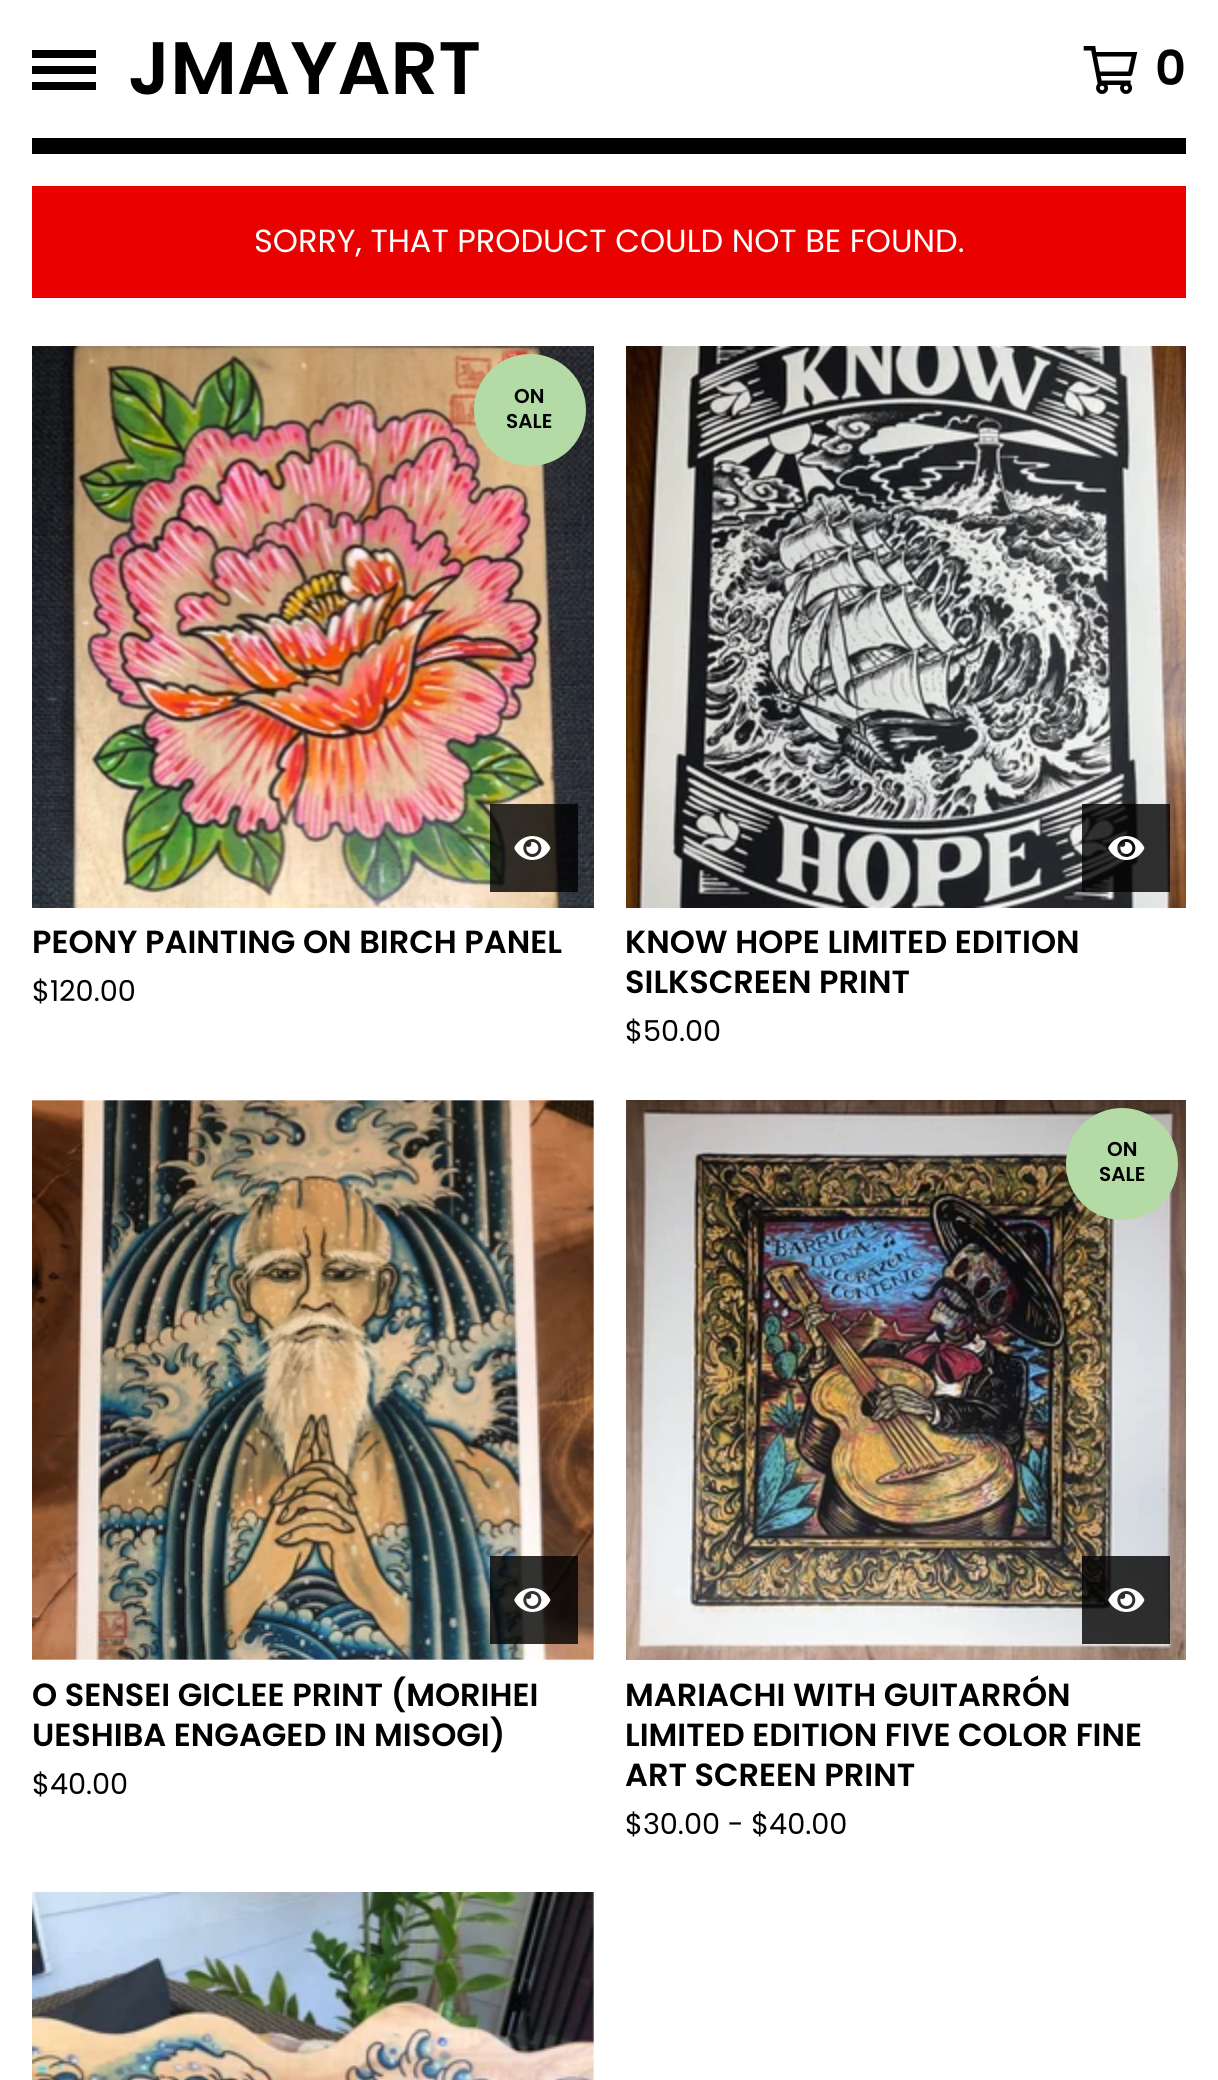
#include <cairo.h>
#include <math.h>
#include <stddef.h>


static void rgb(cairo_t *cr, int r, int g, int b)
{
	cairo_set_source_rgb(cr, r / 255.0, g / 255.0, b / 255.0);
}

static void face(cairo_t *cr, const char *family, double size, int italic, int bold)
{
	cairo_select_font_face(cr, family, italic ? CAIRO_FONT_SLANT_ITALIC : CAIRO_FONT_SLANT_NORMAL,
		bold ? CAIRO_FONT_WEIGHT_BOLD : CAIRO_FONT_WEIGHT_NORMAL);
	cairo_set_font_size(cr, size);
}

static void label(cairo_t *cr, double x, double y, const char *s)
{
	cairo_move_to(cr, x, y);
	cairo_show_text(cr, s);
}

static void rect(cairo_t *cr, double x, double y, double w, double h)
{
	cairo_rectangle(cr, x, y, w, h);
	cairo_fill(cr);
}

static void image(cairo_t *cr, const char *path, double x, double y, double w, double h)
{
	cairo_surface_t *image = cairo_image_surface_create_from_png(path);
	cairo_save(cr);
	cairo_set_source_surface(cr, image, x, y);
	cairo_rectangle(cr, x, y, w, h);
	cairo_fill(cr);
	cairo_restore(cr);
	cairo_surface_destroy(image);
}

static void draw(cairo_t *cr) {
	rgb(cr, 255, 255, 255);
	cairo_paint(cr);
	rgb(cr, 0, 0, 0);
	rect(cr, 32, 138, 1154, 16);
	rect(cr, 32, 66, 64, 8);
	rect(cr, 32, 50, 64, 8);
	rect(cr, 32, 82, 64, 8);
	face(cr, "Poppins SemiBold", 74.25, 0, 0);
	label(cr, 128, 94, "JMAYART");
	image(cr, "image0.png", 1083, 46, 55, 48);
	face(cr, "Poppins SemiBold", 48, 0, 0);
	label(cr, 1155, 85, "0");
	rgb(cr, 235, 0, 0);
	rect(cr, 32, 186, 1154, 112);
	face(cr, "Poppins", 32, 0, 0);
	rgb(cr, 255, 255, 255);
	label(cr, 254, 252, "SORRY, THAT PRODUCT COULD NOT BE FOUND.");
	image(cr, "image1.png", 32, 346, 562, 562);
	rgb(cr, 180, 219, 166);
	cairo_arc(cr, 530, 410, 56, 0, 2 * M_PI);
	cairo_fill(cr);
	face(cr, "Poppins SemiBold", 20, 0, 0);
	rgb(cr, 0, 0, 0);
	label(cr, 514, 403, "ON");
	label(cr, 506, 428, "SALE");
	cairo_set_source_rgba(cr, 0, 0, 0, 0.8);
	rect(cr, 490, 804, 88, 88);
	image(cr, "image2.png", 514, 836, 37, 24);
	face(cr, "Poppins SemiBold", 32, 0, 0);
	rgb(cr, 0, 0, 0);
	label(cr, 32, 953, "PEONY PAINTING ON BIRCH PANEL");
	face(cr, "Poppins", 28.75, 0, 0);
	label(cr, 32, 1001, "$120.00");
	image(cr, "image3.png", 626, 346, 560, 562);
	cairo_set_source_rgba(cr, 0, 0, 0, 0.8);
	rect(cr, 1082, 804, 88, 88);
	image(cr, "image4.png", 1108, 836, 37, 24);
	face(cr, "Poppins SemiBold", 32, 0, 0);
	rgb(cr, 0, 0, 0);
	label(cr, 625, 953, "KNOW HOPE LIMITED EDITION");
	label(cr, 625, 993, "SILKSCREEN PRINT");
	face(cr, "Poppins", 28.75, 0, 0);
	label(cr, 625, 1041, "$50.00");
	image(cr, "image5.png", 32, 1100, 562, 560);
	cairo_set_source_rgba(cr, 0, 0, 0, 0.8);
	rect(cr, 490, 1556, 88, 88);
	image(cr, "image6.png", 514, 1588, 37, 24);
	face(cr, "Poppins SemiBold", 32, 0, 0);
	rgb(cr, 0, 0, 0);
	label(cr, 32, 1706, "O SENSEI GICLEE PRINT (MORIHEI");
	label(cr, 32, 1746, "UESHIBA ENGAGED IN MISOGI)");
	face(cr, "Poppins", 28.75, 0, 0);
	label(cr, 32, 1794, "$40.00");
	image(cr, "image7.png", 626, 1100, 560, 560);
	rgb(cr, 180, 219, 166);
	cairo_arc(cr, 1122, 1164, 56, 0, 2 * M_PI);
	cairo_fill(cr);
	face(cr, "Poppins SemiBold", 20, 0, 0);
	rgb(cr, 0, 0, 0);
	label(cr, 1107, 1156, "ON");
	label(cr, 1099, 1181, "SALE");
	cairo_set_source_rgba(cr, 0, 0, 0, 0.8);
	rect(cr, 1082, 1556, 88, 88);
	image(cr, "image8.png", 1108, 1588, 37, 24);
	face(cr, "Poppins SemiBold", 32, 0, 0);
	rgb(cr, 0, 0, 0);
	label(cr, 625, 1706, "MARIACHI WITH GUITARRÓN");
	label(cr, 625, 1746, "LIMITED EDITION FIVE COLOR FINE");
	label(cr, 625, 1786, "ART SCREEN PRINT");
	face(cr, "Poppins", 28.75, 0, 0);
	label(cr, 625, 1834, "$30.00 - $40.00");
	image(cr, "image9.png", 32, 1892, 562, 188);
}

int main(void) {
	cairo_surface_t *surface = cairo_image_surface_create(CAIRO_FORMAT_RGB24, 1218, 2080);
	cairo_t *cr = cairo_create(surface);
	cairo_font_options_t *options = cairo_font_options_create();
	cairo_font_options_set_hint_metrics(options, CAIRO_HINT_METRICS_OFF);
	cairo_font_options_set_hint_style(options, CAIRO_HINT_STYLE_NONE);
	cairo_set_font_options(cr, options);
	cairo_set_miter_limit(cr, 4);
	draw(cr);
	cairo_surface_write_to_png(surface, "render.png");
	cairo_font_options_destroy(options);
	cairo_destroy(cr);
	cairo_surface_destroy(surface);
	return 0;
}
